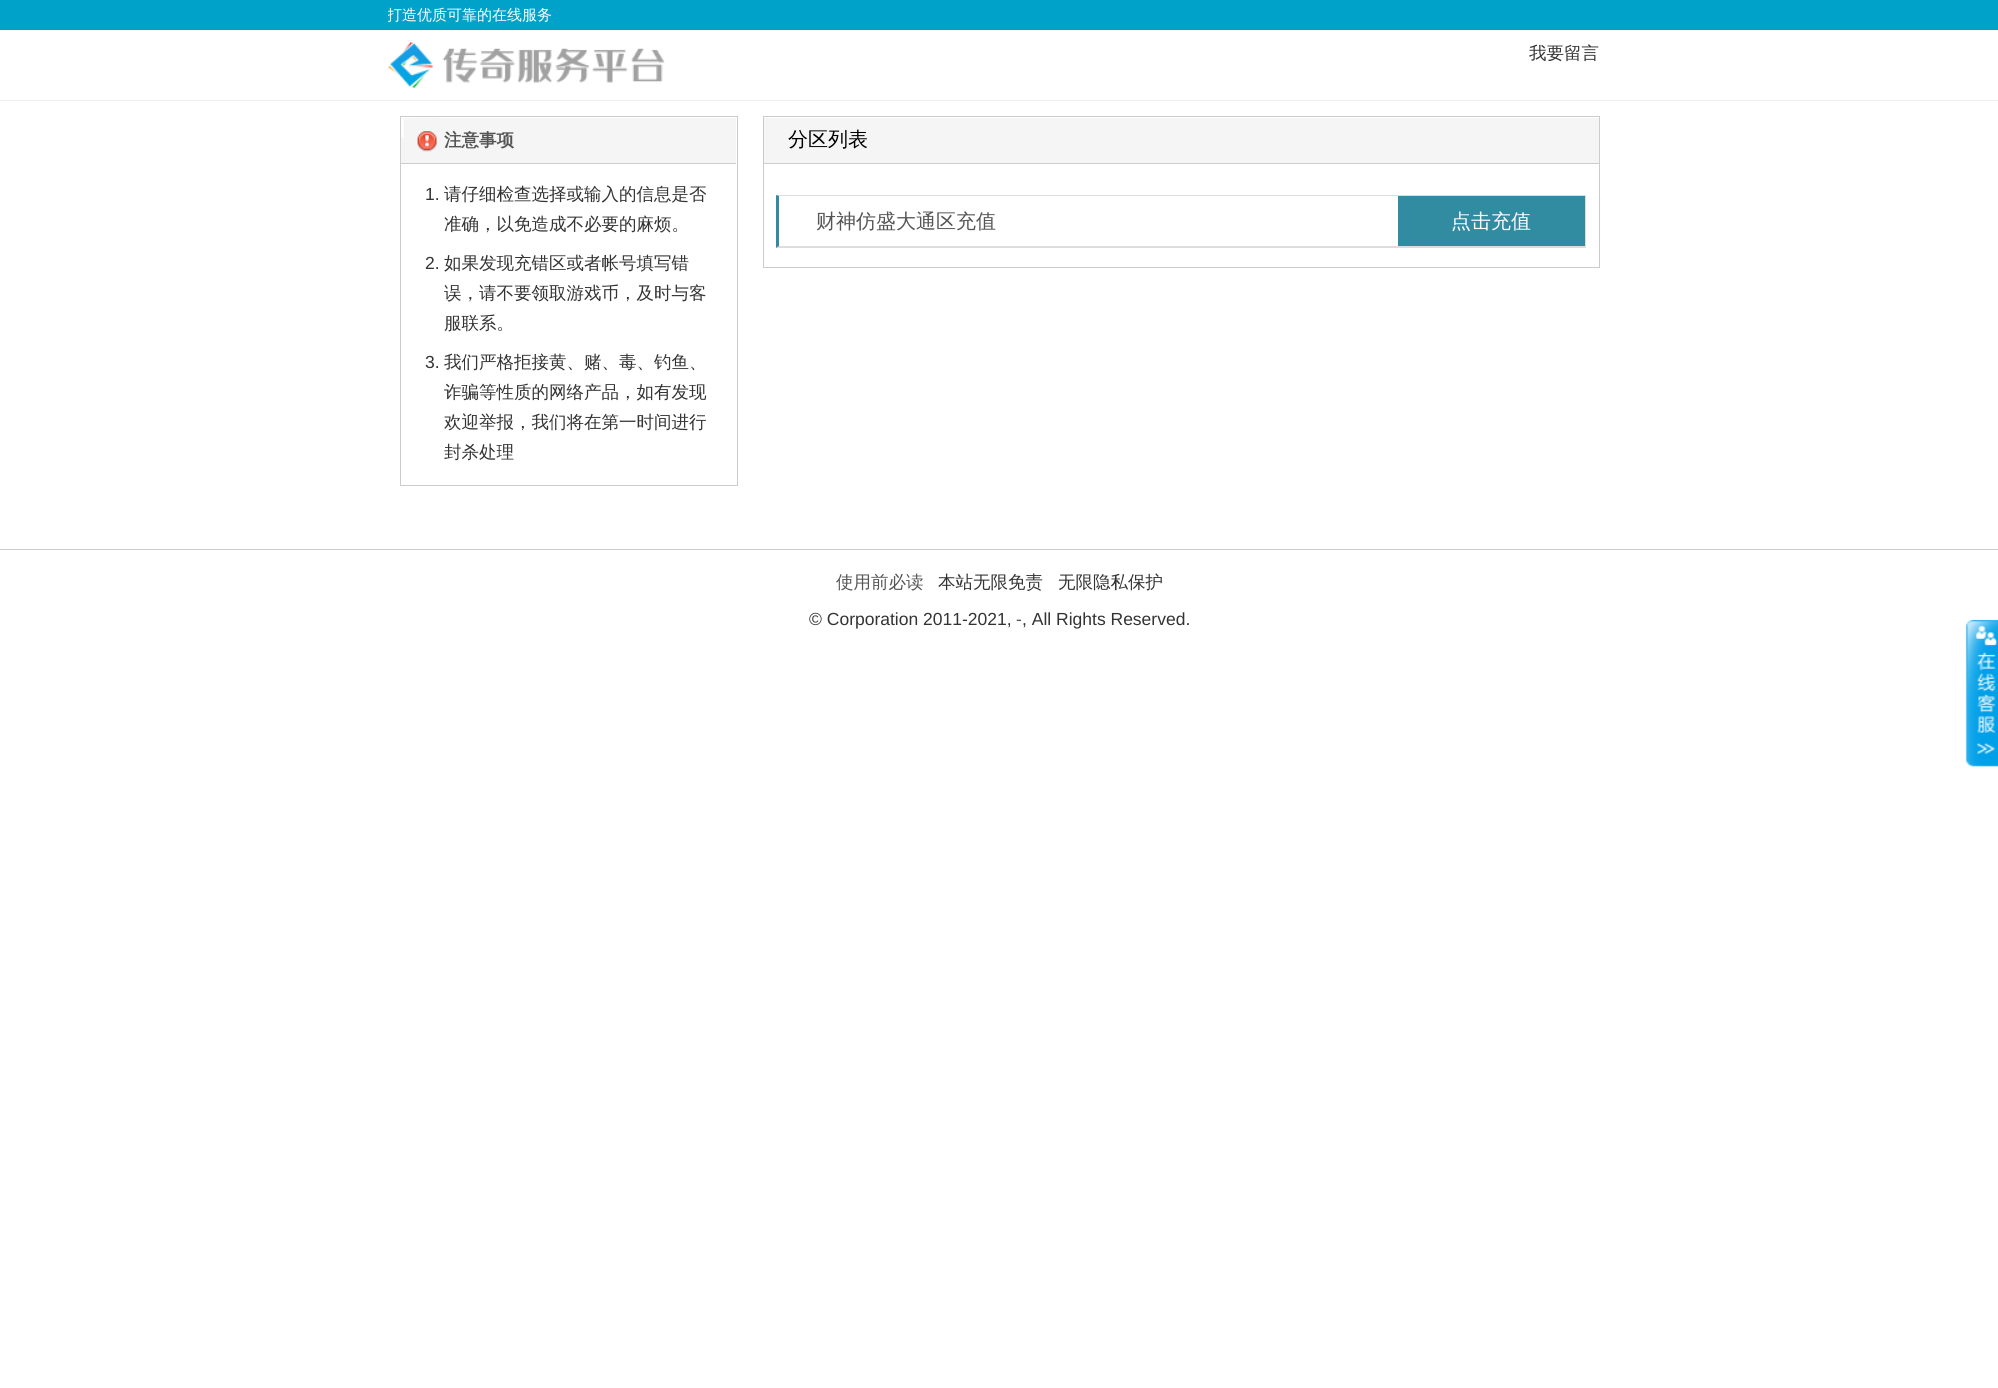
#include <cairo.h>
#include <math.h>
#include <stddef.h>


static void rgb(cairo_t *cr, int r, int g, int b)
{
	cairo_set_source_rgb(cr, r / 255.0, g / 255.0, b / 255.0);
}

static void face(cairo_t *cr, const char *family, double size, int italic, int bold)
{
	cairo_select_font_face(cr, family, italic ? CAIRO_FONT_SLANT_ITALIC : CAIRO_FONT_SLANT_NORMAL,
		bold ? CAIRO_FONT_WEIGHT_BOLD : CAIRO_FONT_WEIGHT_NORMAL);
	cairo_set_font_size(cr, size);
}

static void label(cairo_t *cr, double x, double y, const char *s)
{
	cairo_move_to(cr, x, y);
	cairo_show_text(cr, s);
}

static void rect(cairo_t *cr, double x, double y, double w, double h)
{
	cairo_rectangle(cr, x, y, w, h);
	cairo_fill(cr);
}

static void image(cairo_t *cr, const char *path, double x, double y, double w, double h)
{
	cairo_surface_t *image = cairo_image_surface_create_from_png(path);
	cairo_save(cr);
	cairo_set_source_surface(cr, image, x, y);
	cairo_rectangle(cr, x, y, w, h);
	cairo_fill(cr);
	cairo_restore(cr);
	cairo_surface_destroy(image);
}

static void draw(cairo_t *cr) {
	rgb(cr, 255, 255, 255);
	cairo_paint(cr);
	rgb(cr, 238, 238, 238);
	rect(cr, 0, 100, 1998, 1);
	rgb(cr, 0, 162, 202);
	rect(cr, 0, 0, 1998, 30);
	cairo_save(cr);
	cairo_rectangle(cr, 388, 0, 1225, 30);
	cairo_clip(cr);
	face(cr, "WenQuanYi Zen Hei Medium", 15, 0, 0);
	rgb(cr, 255, 255, 255);
	label(cr, 387, 20, "打造优质可靠的在线服务");
	cairo_restore(cr);
	image(cr, "image0.png", 387, 42, 278, 46);
	face(cr, "WenQuanYi Zen Hei Medium", 17.5, 0, 0);
	rgb(cr, 51, 51, 51);
	label(cr, 1529, 59, "我要留言");
	cairo_rectangle(cr, 400.5, 116.5, 337, 369);
	rgb(cr, 204, 204, 204);
	cairo_set_line_width(cr, 1);
	cairo_stroke(cr);
	rgb(cr, 245, 245, 245);
	rect(cr, 401, 118, 335, 45);
	image(cr, "image1.png", 401, 117, 38, 35);
	rgb(cr, 204, 204, 204);
	rect(cr, 401, 163, 335, 1);
	face(cr, "WenQuanYi Zen Hei", 17.5, 0, 1);
	rgb(cr, 85, 85, 85);
	label(cr, 444, 146, "注意事项");
	face(cr, "Liberation Sans", 17.5, 0, 0);
	rgb(cr, 51, 51, 51);
	label(cr, 425, 200, "1.");
	face(cr, "WenQuanYi Zen Hei Medium", 17.5, 0, 0);
	label(cr, 444, 200, "请仔细检查选择或输入的信息是否");
	label(cr, 444, 230, "准确，以免造成不必要的麻烦。");
	face(cr, "Liberation Sans", 17.5, 0, 0);
	label(cr, 425, 269, "2.");
	face(cr, "WenQuanYi Zen Hei Medium", 17.5, 0, 0);
	label(cr, 444, 269, "如果发现充错区或者帐号填写错");
	label(cr, 444, 299, "误，请不要领取游戏币，及时与客");
	label(cr, 444, 329, "服联系。");
	face(cr, "Liberation Sans", 17.5, 0, 0);
	label(cr, 425, 368, "3.");
	face(cr, "WenQuanYi Zen Hei Medium", 17.5, 0, 0);
	label(cr, 444, 368, "我们严格拒接黄、赌、毒、钓鱼、");
	label(cr, 444, 398, "诈骗等性质的网络产品，如有发现");
	label(cr, 444, 428, "欢迎举报，我们将在第一时间进行");
	label(cr, 444, 458, "封杀处理");
	cairo_rectangle(cr, 763.5, 116.5, 836, 151);
	rgb(cr, 204, 204, 204);
	cairo_stroke(cr);
	rgb(cr, 245, 245, 245);
	rect(cr, 764, 118, 835, 45);
	rgb(cr, 204, 204, 204);
	rect(cr, 764, 163, 835, 1);
	face(cr, "WenQuanYi Zen Hei Medium", 20, 0, 0);
	rgb(cr, 0, 0, 0);
	label(cr, 788, 146, "分区列表");
	rgb(cr, 221, 221, 221);
	cairo_new_path(cr);
	cairo_move_to(cr, 776, 195);
	cairo_line_to(cr, 1586, 195);
	cairo_line_to(cr, 1585, 196);
	cairo_line_to(cr, 779, 196);
	cairo_close_path(cr);
	cairo_fill(cr);
	rect(cr, 1585, 195, 1, 53);
	cairo_new_path(cr);
	cairo_move_to(cr, 1586, 248);
	cairo_line_to(cr, 776, 248);
	cairo_line_to(cr, 779, 246);
	cairo_line_to(cr, 1585, 246);
	cairo_close_path(cr);
	cairo_fill(cr);
	rgb(cr, 49, 140, 162);
	cairo_new_path(cr);
	cairo_move_to(cr, 776, 248);
	cairo_line_to(cr, 776, 195);
	cairo_line_to(cr, 779, 196);
	cairo_line_to(cr, 779, 246);
	cairo_close_path(cr);
	cairo_fill(cr);
	rgb(cr, 85, 85, 85);
	label(cr, 816, 228, "财神仿盛大通区充值");
	rgb(cr, 49, 140, 162);
	rect(cr, 1398, 196, 187, 50);
	rgb(cr, 255, 255, 255);
	label(cr, 1451, 228, "点击充值");
	rgb(cr, 204, 204, 204);
	rect(cr, 0, 549, 1998, 1);
	face(cr, "WenQuanYi Zen Hei Medium", 17.5, 0, 0);
	rgb(cr, 85, 85, 85);
	label(cr, 836, 588, "使用前必读");
	rgb(cr, 51, 51, 51);
	label(cr, 938, 588, "本站无限免责");
	label(cr, 1058, 588, "无限隐私保护");
	face(cr, "Liberation Sans", 17.5, 0, 0);
	label(cr, 809, 625, "© Corporation 2011-2021,");
	rgb(cr, 85, 85, 85);
	label(cr, 1016, 625, "-");
	rgb(cr, 51, 51, 51);
	label(cr, 1022, 625, ", All Rights Reserved.");
	image(cr, "image2.png", 1965, 619, 33, 148);
}

int main(void) {
	cairo_surface_t *surface = cairo_image_surface_create(CAIRO_FORMAT_RGB24, 1998, 1388);
	cairo_t *cr = cairo_create(surface);
	cairo_font_options_t *options = cairo_font_options_create();
	cairo_font_options_set_hint_metrics(options, CAIRO_HINT_METRICS_OFF);
	cairo_font_options_set_hint_style(options, CAIRO_HINT_STYLE_NONE);
	cairo_set_font_options(cr, options);
	cairo_set_miter_limit(cr, 4);
	draw(cr);
	cairo_surface_write_to_png(surface, "render.png");
	cairo_font_options_destroy(options);
	cairo_destroy(cr);
	cairo_surface_destroy(surface);
	return 0;
}
